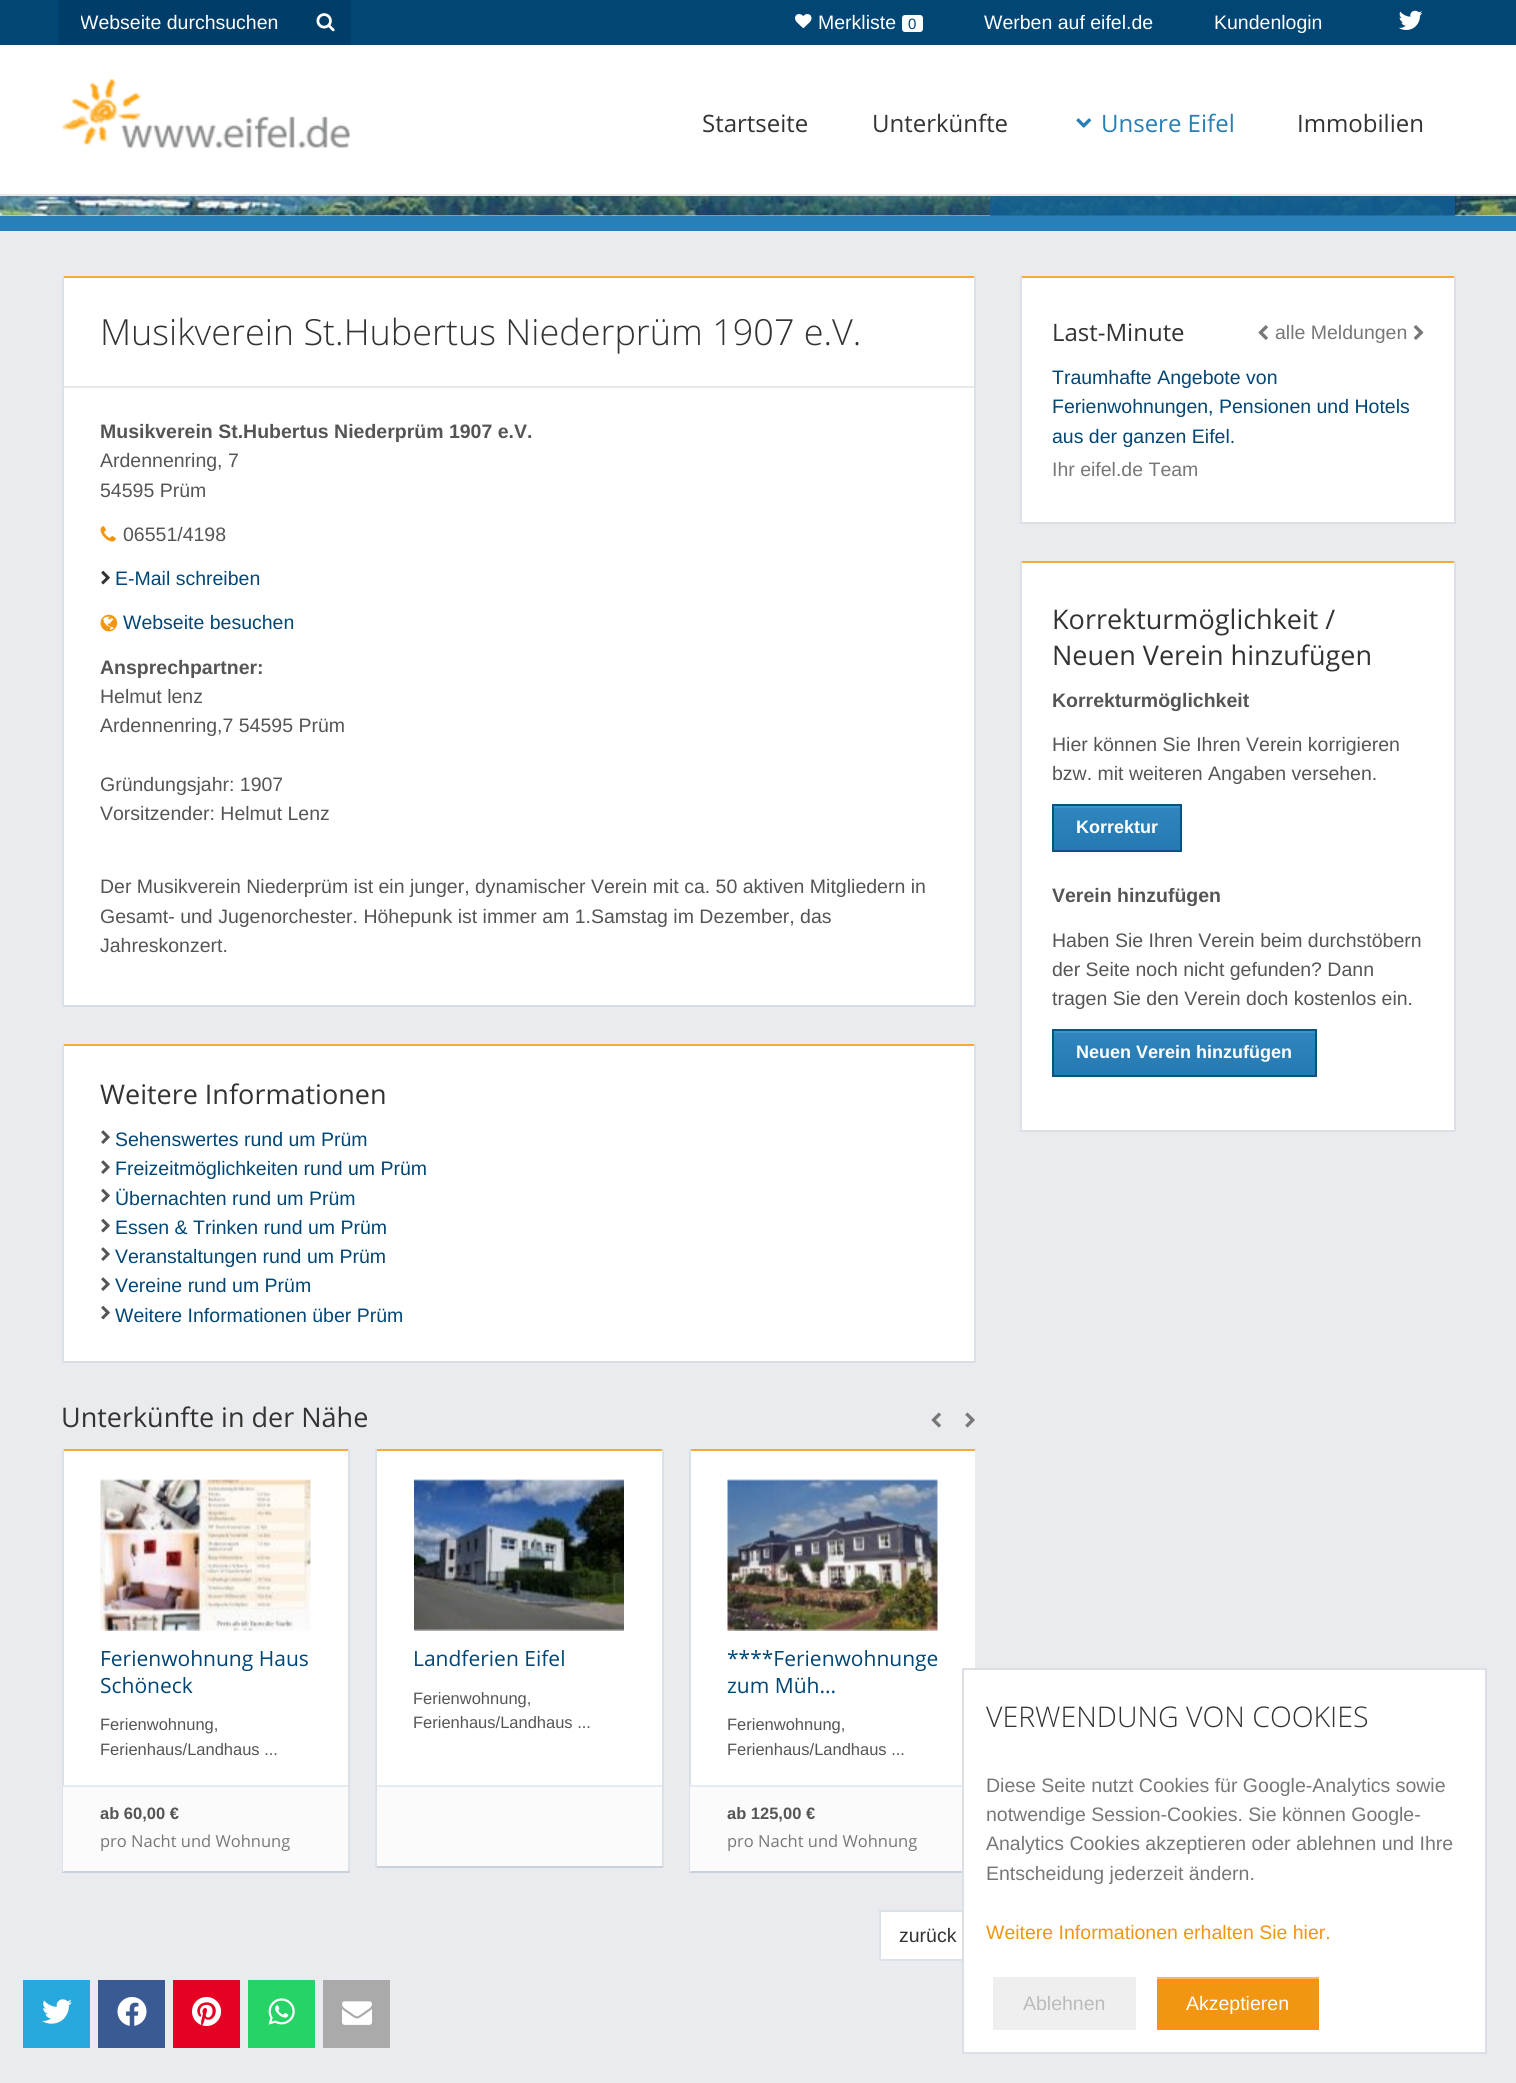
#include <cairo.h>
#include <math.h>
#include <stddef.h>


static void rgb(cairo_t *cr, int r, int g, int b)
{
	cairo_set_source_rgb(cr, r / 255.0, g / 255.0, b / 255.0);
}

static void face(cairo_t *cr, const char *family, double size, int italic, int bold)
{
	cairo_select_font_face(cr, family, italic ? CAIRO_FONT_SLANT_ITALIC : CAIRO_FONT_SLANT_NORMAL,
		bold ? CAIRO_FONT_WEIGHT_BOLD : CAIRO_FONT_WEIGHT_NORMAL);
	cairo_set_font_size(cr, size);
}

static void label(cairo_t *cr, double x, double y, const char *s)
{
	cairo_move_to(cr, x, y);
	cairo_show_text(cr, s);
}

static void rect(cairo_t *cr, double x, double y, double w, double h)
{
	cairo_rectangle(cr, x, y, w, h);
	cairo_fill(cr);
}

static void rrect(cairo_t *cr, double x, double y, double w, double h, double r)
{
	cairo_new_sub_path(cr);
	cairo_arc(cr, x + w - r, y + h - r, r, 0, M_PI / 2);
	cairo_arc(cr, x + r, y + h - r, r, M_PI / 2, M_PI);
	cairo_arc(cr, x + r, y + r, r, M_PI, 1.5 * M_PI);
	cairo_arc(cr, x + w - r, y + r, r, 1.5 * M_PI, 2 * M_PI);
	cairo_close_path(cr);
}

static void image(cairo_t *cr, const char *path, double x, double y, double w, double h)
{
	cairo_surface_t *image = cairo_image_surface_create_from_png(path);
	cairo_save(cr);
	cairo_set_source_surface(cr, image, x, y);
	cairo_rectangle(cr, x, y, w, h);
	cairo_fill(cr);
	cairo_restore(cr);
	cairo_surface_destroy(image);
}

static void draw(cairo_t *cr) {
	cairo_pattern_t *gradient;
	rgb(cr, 234, 235, 238);
	cairo_paint(cr);
	rgb(cr, 1, 70, 117);
	rect(cr, 0, 0, 1516, 45);
	rgb(cr, 0, 62, 105);
	rect(cr, 59, 0, 292, 45);
	cairo_save(cr);
	cairo_rectangle(cr, 81, 11, 225, 22);
	cairo_clip(cr);
	face(cr, "Liberation Sans", 19.5, 0, 0);
	rgb(cr, 255, 255, 255);
	label(cr, 80, 29, "Webseite durchsuchen");
	cairo_restore(cr);
	image(cr, "image0.png", 316, 13, 19, 19);
	image(cr, "image1.png", 795, 14, 17, 15);
	face(cr, "Liberation Sans", 19.5, 0, 0);
	rgb(cr, 255, 255, 255);
	label(cr, 818, 29, "Merkliste");
	rrect(cr, 902, 15, 21, 17, 3);
	cairo_fill(cr);
	face(cr, "Liberation Sans", 15, 0, 0);
	rgb(cr, 1, 70, 117);
	label(cr, 908, 29, "0");
	face(cr, "Liberation Sans", 19.5, 0, 0);
	rgb(cr, 255, 255, 255);
	label(cr, 984, 29, "Werben auf eifel.de");
	label(cr, 1214, 29, "Kundenlogin");
	image(cr, "image2.png", 1398, 10, 25, 20);
	rect(cr, 0, 45, 1516, 149);
	rgb(cr, 233, 233, 233);
	rect(cr, 0, 194, 1516, 2);
	image(cr, "image3.png", 61, 79, 289, 70);
	face(cr, "Open Sans", 24, 0, 0);
	rgb(cr, 51, 51, 51);
	label(cr, 702, 132, "Startseite");
	label(cr, 872, 132, "Unterkünfte");
	image(cr, "image4.png", 1076, 118, 16, 10);
	rgb(cr, 40, 127, 184);
	label(cr, 1101, 132, "Unsere Eifel");
	rgb(cr, 51, 51, 51);
	label(cr, 1297, 132, "Immobilien");
	rgb(cr, 41, 128, 185);
	rect(cr, 0, 216, 1516, 15);
	image(cr, "image5.png", 0, 196, 1516, 20);
	cairo_set_source_rgba(cr, 0.059, 0.384, 0.592, 0.8);
	rect(cr, 990, 196, 465, 20);
	rgb(cr, 255, 255, 255);
	rect(cr, 64, 278, 910, 727);
	rgb(cr, 250, 169, 50);
	rect(cr, 62, 276, 913, 2);
	rgb(cr, 219, 225, 233);
	rect(cr, 974, 276, 2, 731);
	rgb(cr, 216, 221, 229);
	rect(cr, 62, 1005, 913, 2);
	rgb(cr, 219, 225, 233);
	rect(cr, 62, 276, 2, 731);
	face(cr, "Open Sans Light", 36, 0, 0);
	rgb(cr, 51, 51, 51);
	label(cr, 100, 345, "Musikverein St.Hubertus Niederprüm 1907 e.V.");
	rgb(cr, 233, 233, 233);
	rect(cr, 63, 386, 911, 2);
	face(cr, "Liberation Sans", 19.5, 0, 1);
	rgb(cr, 85, 85, 85);
	label(cr, 100, 438, "Musikverein St.Hubertus Niederprüm 1907 e.V.");
	face(cr, "Liberation Sans", 19.5, 0, 0);
	label(cr, 100, 467, "Ardennenring, 7");
	label(cr, 100, 497, "54595 Prüm");
	image(cr, "image6.png", 100, 526, 16, 16);
	label(cr, 123, 541, "06551/4198");
	image(cr, "image7.png", 101, 570, 9, 15);
	rgb(cr, 1, 70, 117);
	label(cr, 115, 585, "E-Mail schreiben");
	image(cr, "image8.png", 100, 614, 18, 18);
	label(cr, 123, 629, "Webseite besuchen");
	face(cr, "Liberation Sans", 19.5, 0, 1);
	rgb(cr, 85, 85, 85);
	label(cr, 100, 674, "Ansprechpartner:");
	face(cr, "Liberation Sans", 19.5, 0, 0);
	label(cr, 100, 703, "Helmut lenz");
	label(cr, 100, 732, "Ardennenring,7 54595 Prüm");
	label(cr, 100, 791, "Gründungsjahr: 1907");
	label(cr, 100, 820, "Vorsitzender: Helmut Lenz");
	label(cr, 100, 893, "Der Musikverein Niederprüm ist ein junger, dynamischer Verein mit ca. 50 aktiven Mitgliedern in");
	label(cr, 100, 923, "Gesamt- und Jugenorchester. Höhepunk ist immer am 1.Samstag im Dezember, das");
	label(cr, 100, 952, "Jahreskonzert.");
	rgb(cr, 255, 255, 255);
	rect(cr, 64, 1046, 910, 315);
	rgb(cr, 250, 169, 50);
	rect(cr, 62, 1044, 913, 2);
	rgb(cr, 219, 225, 233);
	rect(cr, 974, 1044, 2, 318);
	rgb(cr, 216, 221, 229);
	rect(cr, 62, 1361, 913, 2);
	rgb(cr, 219, 225, 233);
	rect(cr, 62, 1044, 2, 318);
	face(cr, "Open Sans", 27, 0, 0);
	rgb(cr, 51, 51, 51);
	label(cr, 100, 1104, "Weitere Informationen");
	image(cr, "image9.png", 101, 1130, 9, 14);
	face(cr, "Liberation Sans", 19.5, 0, 0);
	rgb(cr, 1, 70, 117);
	label(cr, 115, 1146, "Sehenswertes rund um Prüm");
	image(cr, "image9.png", 101, 1160, 9, 14);
	label(cr, 115, 1175, "Freizeitmöglichkeiten rund um Prüm");
	image(cr, "image10.png", 101, 1188, 9, 15);
	label(cr, 115, 1205, "Übernachten rund um Prüm");
	image(cr, "image10.png", 101, 1218, 9, 15);
	label(cr, 115, 1234, "Essen & Trinken rund um Prüm");
	image(cr, "image9.png", 101, 1247, 9, 14);
	label(cr, 115, 1263, "Veranstaltungen rund um Prüm");
	image(cr, "image9.png", 101, 1277, 9, 14);
	label(cr, 115, 1292, "Vereine rund um Prüm");
	image(cr, "image10.png", 101, 1305, 9, 15);
	label(cr, 115, 1322, "Weitere Informationen über Prüm");
	face(cr, "Open Sans", 27, 0, 0);
	rgb(cr, 51, 51, 51);
	label(cr, 61, 1427, "Unterkünfte in der Nähe");
	image(cr, "image11.png", 931, 1412, 10, 16);
	image(cr, "image12.png", 965, 1412, 10, 16);
	rgb(cr, 255, 255, 255);
	rect(cr, 64, 1451, 284, 334);
	rgb(cr, 250, 169, 50);
	rect(cr, 62, 1449, 288, 2);
	rgb(cr, 219, 225, 233);
	rect(cr, 348, 1449, 2, 423);
	rgb(cr, 201, 209, 219);
	rect(cr, 62, 1871, 288, 2);
	rgb(cr, 219, 225, 233);
	rect(cr, 62, 1449, 2, 423);
	image(cr, "image13.png", 100, 1479, 211, 152);
	face(cr, "Open Sans", 21, 0, 0);
	rgb(cr, 1, 70, 117);
	label(cr, 100, 1666, "Ferienwohnung Haus");
	label(cr, 100, 1693, "Schöneck");
	face(cr, "Liberation Sans", 16.5, 0, 0);
	rgb(cr, 85, 85, 85);
	label(cr, 100, 1730, "Ferienwohnung,");
	label(cr, 100, 1755, "Ferienhaus/Landhaus ...");
	rgb(cr, 251, 251, 251);
	rect(cr, 63, 1787, 285, 84);
	rgb(cr, 230, 235, 243);
	rect(cr, 63, 1785, 285, 2);
	face(cr, "Liberation Sans", 16.5, 0, 1);
	rgb(cr, 85, 85, 85);
	label(cr, 100, 1819, "ab 60,00 €");
	face(cr, "Open Sans", 16.5, 0, 0);
	rgb(cr, 119, 119, 119);
	label(cr, 100, 1847, "pro Nacht und Wohnung");
	rgb(cr, 255, 255, 255);
	rect(cr, 377, 1451, 285, 334);
	rgb(cr, 250, 169, 50);
	rect(cr, 375, 1449, 288, 2);
	rgb(cr, 219, 225, 233);
	rect(cr, 662, 1449, 2, 419);
	rgb(cr, 201, 209, 219);
	rect(cr, 375, 1866, 288, 2);
	rgb(cr, 219, 225, 233);
	rect(cr, 375, 1449, 2, 419);
	image(cr, "image14.png", 414, 1479, 210, 152);
	face(cr, "Open Sans", 21, 0, 0);
	rgb(cr, 1, 70, 117);
	label(cr, 413, 1666, "Landferien Eifel");
	face(cr, "Liberation Sans", 16.5, 0, 0);
	rgb(cr, 85, 85, 85);
	label(cr, 413, 1704, "Ferienwohnung,");
	label(cr, 413, 1728, "Ferienhaus/Landhaus ...");
	rgb(cr, 251, 251, 251);
	rect(cr, 377, 1787, 285, 79);
	rgb(cr, 230, 235, 243);
	rect(cr, 377, 1785, 285, 2);
	rgb(cr, 255, 255, 255);
	rect(cr, 691, 1451, 284, 334);
	rgb(cr, 250, 169, 50);
	rect(cr, 689, 1449, 286, 2);
	rgb(cr, 201, 209, 219);
	rect(cr, 689, 1871, 273, 2);
	rgb(cr, 219, 225, 233);
	rect(cr, 689, 1449, 2, 423);
	image(cr, "image15.png", 727, 1479, 211, 152);
	face(cr, "Open Sans", 21, 0, 0);
	rgb(cr, 1, 70, 117);
	label(cr, 727, 1666, "****Ferienwohnunge");
	label(cr, 727, 1693, "zum Müh...");
	face(cr, "Liberation Sans", 16.5, 0, 0);
	rgb(cr, 85, 85, 85);
	label(cr, 727, 1730, "Ferienwohnung,");
	label(cr, 727, 1755, "Ferienhaus/Landhaus ...");
	rgb(cr, 251, 251, 251);
	rect(cr, 690, 1787, 272, 84);
	rgb(cr, 230, 235, 243);
	rect(cr, 690, 1785, 272, 2);
	face(cr, "Liberation Sans", 16.5, 0, 1);
	rgb(cr, 85, 85, 85);
	label(cr, 727, 1819, "ab 125,00 €");
	face(cr, "Open Sans", 16.5, 0, 0);
	rgb(cr, 119, 119, 119);
	label(cr, 727, 1847, "pro Nacht und Wohnung");
	rgb(cr, 255, 255, 255);
	rect(cr, 881, 1912, 81, 47);
	cairo_rectangle(cr, 880, 1911, 94, 49);
	rgb(cr, 219, 225, 233);
	cairo_stroke(cr);
	face(cr, "Liberation Sans", 19.5, 0, 0);
	rgb(cr, 51, 51, 51);
	label(cr, 899, 1942, "zurück");
	rgb(cr, 255, 255, 255);
	rect(cr, 1022, 278, 432, 244);
	rgb(cr, 250, 169, 50);
	rect(cr, 1020, 276, 435, 2);
	rgb(cr, 220, 223, 230);
	rect(cr, 1454, 276, 2, 248);
	rect(cr, 1020, 522, 435, 2);
	rect(cr, 1020, 276, 2, 248);
	face(cr, "Open Sans", 24, 0, 0);
	rgb(cr, 51, 51, 51);
	label(cr, 1052, 341, "Last-Minute");
	face(cr, "Liberation Sans", 19.5, 0, 0);
	rgb(cr, 1, 70, 117);
	label(cr, 1052, 384, "Traumhafte Angebote von");
	label(cr, 1052, 413, "Ferienwohnungen, Pensionen und Hotels");
	label(cr, 1052, 443, "aus der ganzen Eifel.");
	rgb(cr, 119, 119, 119);
	label(cr, 1052, 476, "Ihr eifel.de Team");
	image(cr, "image16.png", 1258, 325, 10, 15);
	label(cr, 1275, 339, "alle Meldungen");
	image(cr, "image17.png", 1413, 325, 11, 15);
	rgb(cr, 255, 255, 255);
	rect(cr, 1022, 563, 432, 567);
	rgb(cr, 250, 169, 50);
	rect(cr, 1020, 561, 435, 2);
	rgb(cr, 220, 223, 230);
	rect(cr, 1454, 561, 2, 570);
	rect(cr, 1020, 1130, 435, 2);
	rect(cr, 1020, 561, 2, 570);
	face(cr, "Open Sans", 27, 0, 0);
	rgb(cr, 51, 51, 51);
	label(cr, 1052, 629, "Korrekturmöglichkeit /");
	label(cr, 1052, 665, "Neuen Verein hinzufügen");
	face(cr, "Liberation Sans", 19.5, 0, 1);
	rgb(cr, 85, 85, 85);
	label(cr, 1052, 707, "Korrekturmöglichkeit");
	face(cr, "Liberation Sans", 19.5, 0, 0);
	label(cr, 1052, 751, "Hier können Sie Ihren Verein korrigieren");
	label(cr, 1052, 780, "bzw. mit weiteren Angaben versehen.");
	gradient = cairo_pattern_create_linear(1117, 806, 1117, 851);
	cairo_pattern_add_color_stop_rgba(gradient, 0, 0.188, 0.525, 0.741, 1);
	cairo_pattern_add_color_stop_rgba(gradient, 1, 0.145, 0.475, 0.702, 1);
	cairo_set_source(cr, gradient);
	cairo_pattern_destroy(gradient);
	rect(cr, 1054, 808, 126, 42);
	rgb(cr, 61, 146, 205);
	rect(cr, 1053, 806, 128, 2);
	cairo_rectangle(cr, 1053, 805, 128, 46);
	rgb(cr, 10, 82, 132);
	cairo_stroke(cr);
	face(cr, "Liberation Sans", 18, 0, 1);
	rgb(cr, 255, 255, 255);
	label(cr, 1076, 833, "Korrektur");
	face(cr, "Liberation Sans", 19.5, 0, 1);
	rgb(cr, 85, 85, 85);
	label(cr, 1052, 902, "Verein hinzufügen");
	face(cr, "Liberation Sans", 19.5, 0, 0);
	label(cr, 1052, 947, "Haben Sie Ihren Verein beim durchstöbern");
	label(cr, 1052, 976, "der Seite noch nicht gefunden? Dann");
	label(cr, 1052, 1005, "tragen Sie den Verein doch kostenlos ein.");
	gradient = cairo_pattern_create_linear(1184, 1031, 1184, 1076);
	cairo_pattern_add_color_stop_rgba(gradient, 0, 0.188, 0.525, 0.741, 1);
	cairo_pattern_add_color_stop_rgba(gradient, 1, 0.145, 0.475, 0.702, 1);
	cairo_set_source(cr, gradient);
	cairo_pattern_destroy(gradient);
	rect(cr, 1054, 1033, 261, 42);
	rgb(cr, 61, 146, 205);
	rect(cr, 1053, 1031, 263, 2);
	cairo_rectangle(cr, 1053, 1030, 263, 46);
	rgb(cr, 10, 82, 132);
	cairo_stroke(cr);
	face(cr, "Liberation Sans", 18, 0, 1);
	rgb(cr, 255, 255, 255);
	label(cr, 1076, 1058, "Neuen Verein hinzufügen");
	rgb(cr, 39, 169, 221);
	rect(cr, 23, 1980, 67, 68);
	image(cr, "image18.png", 42, 1999, 30, 25);
	rgb(cr, 58, 90, 147);
	rect(cr, 98, 1980, 67, 68);
	image(cr, "image19.png", 117, 1997, 30, 29);
	rgb(cr, 230, 0, 35);
	rect(cr, 173, 1980, 67, 68);
	image(cr, "image20.png", 192, 1997, 30, 29);
	rgb(cr, 37, 211, 102);
	rect(cr, 248, 1980, 67, 68);
	image(cr, "image21.png", 268, 1998, 27, 27);
	rgb(cr, 170, 170, 170);
	rect(cr, 323, 1980, 67, 68);
	image(cr, "image22.png", 342, 2001, 30, 24);
	rgb(cr, 255, 255, 255);
	cairo_rectangle(cr, 963, 1669, 523, 384);
	cairo_fill_preserve(cr);
	rgb(cr, 220, 223, 230);
	cairo_stroke(cr);
	face(cr, "Open Sans Light", 28.5, 0, 0);
	rgb(cr, 51, 51, 51);
	label(cr, 986, 1727, "VERWENDUNG VON COOKIES");
	face(cr, "Liberation Sans", 19.5, 0, 0);
	rgb(cr, 119, 119, 119);
	label(cr, 986, 1792, "Diese Seite nutzt Cookies für Google-Analytics sowie");
	label(cr, 986, 1821, "notwendige Session-Cookies. Sie können Google-");
	label(cr, 986, 1850, "Analytics Cookies akzeptieren oder ablehnen und Ihre");
	label(cr, 986, 1880, "Entscheidung jederzeit ändern.");
	rgb(cr, 242, 149, 16);
	label(cr, 986, 1939, "Weitere Informationen erhalten Sie hier.");
	rgb(cr, 239, 239, 239);
	rect(cr, 993, 1977, 143, 53);
	rgb(cr, 187, 187, 187);
	label(cr, 1023, 2010, "Ablehnen");
	rgb(cr, 242, 149, 16);
	rect(cr, 1157, 1979, 162, 51);
	rgb(cr, 247, 187, 88);
	rect(cr, 1157, 1977, 162, 2);
	rgb(cr, 255, 255, 255);
	label(cr, 1186, 2010, "Akzeptieren");
}

int main(void) {
	cairo_surface_t *surface = cairo_image_surface_create(CAIRO_FORMAT_RGB24, 1516, 2083);
	cairo_t *cr = cairo_create(surface);
	cairo_font_options_t *options = cairo_font_options_create();
	cairo_font_options_set_hint_metrics(options, CAIRO_HINT_METRICS_OFF);
	cairo_font_options_set_hint_style(options, CAIRO_HINT_STYLE_NONE);
	cairo_set_font_options(cr, options);
	cairo_set_miter_limit(cr, 4);
	draw(cr);
	cairo_surface_write_to_png(surface, "render.png");
	cairo_font_options_destroy(options);
	cairo_destroy(cr);
	cairo_surface_destroy(surface);
	return 0;
}
